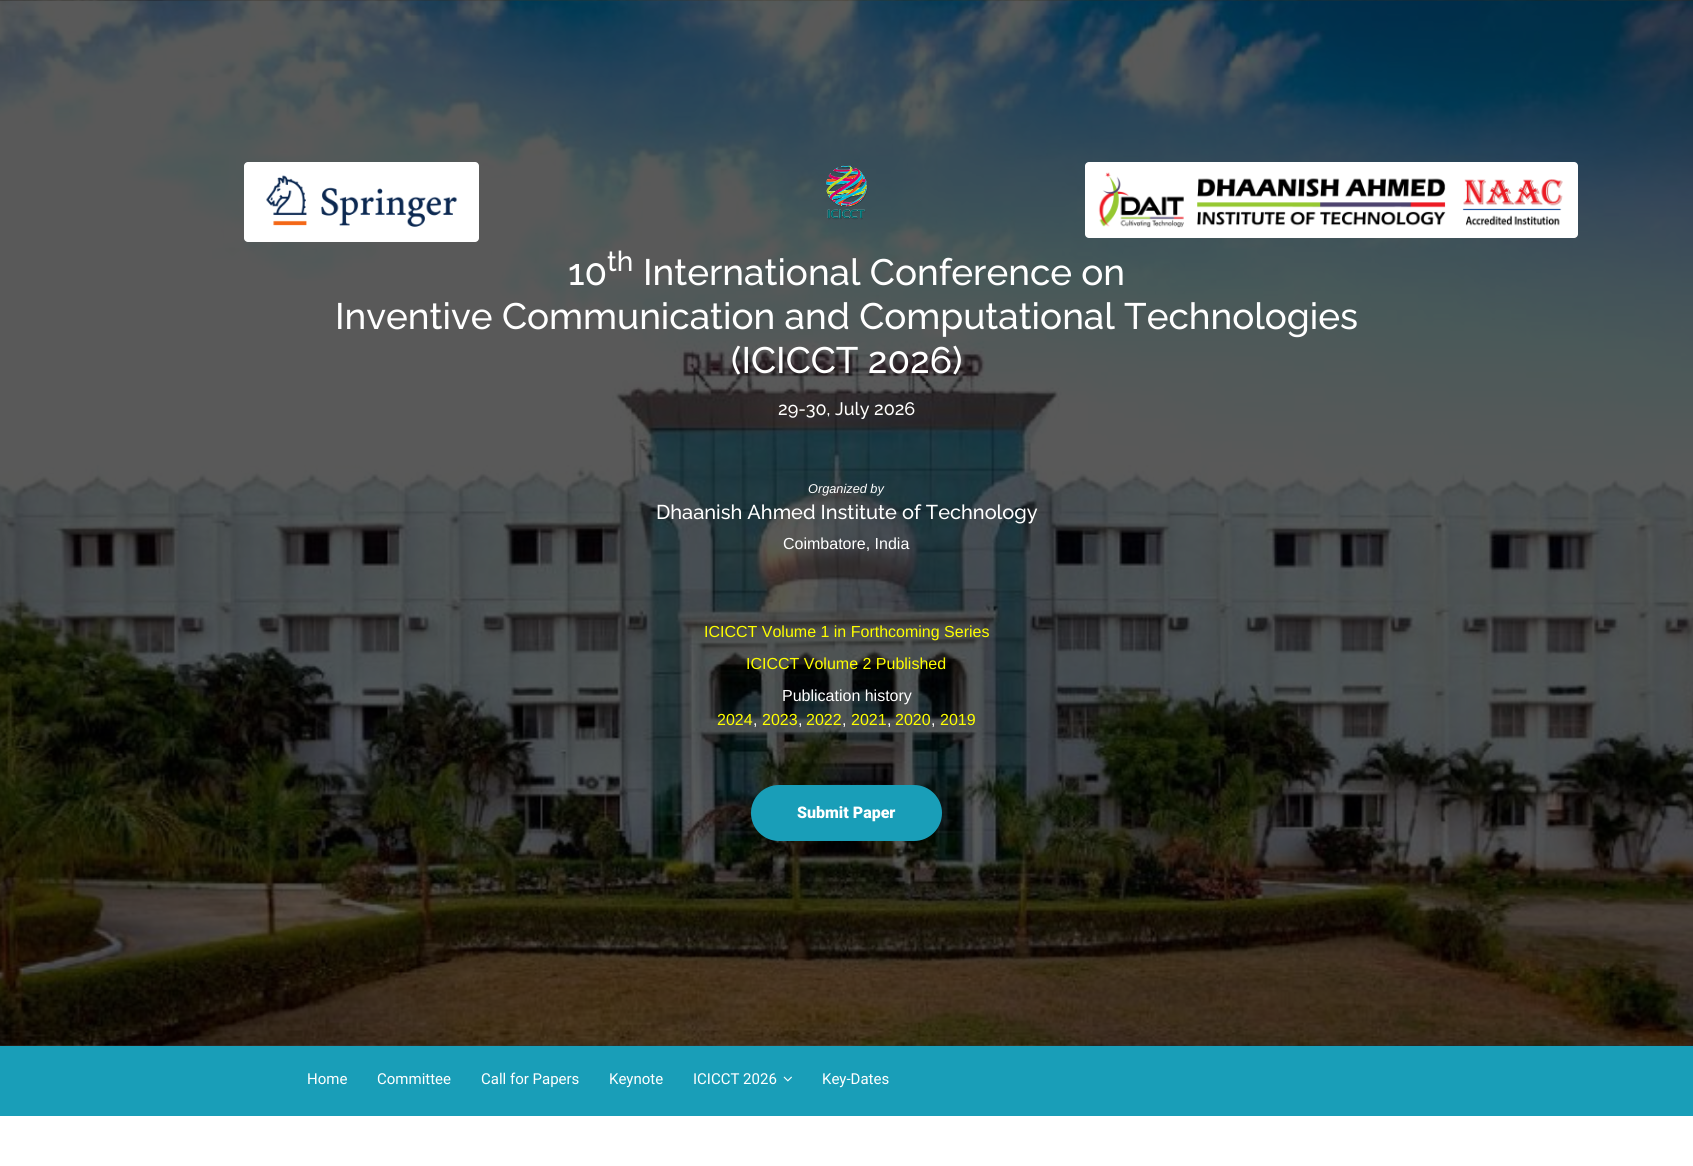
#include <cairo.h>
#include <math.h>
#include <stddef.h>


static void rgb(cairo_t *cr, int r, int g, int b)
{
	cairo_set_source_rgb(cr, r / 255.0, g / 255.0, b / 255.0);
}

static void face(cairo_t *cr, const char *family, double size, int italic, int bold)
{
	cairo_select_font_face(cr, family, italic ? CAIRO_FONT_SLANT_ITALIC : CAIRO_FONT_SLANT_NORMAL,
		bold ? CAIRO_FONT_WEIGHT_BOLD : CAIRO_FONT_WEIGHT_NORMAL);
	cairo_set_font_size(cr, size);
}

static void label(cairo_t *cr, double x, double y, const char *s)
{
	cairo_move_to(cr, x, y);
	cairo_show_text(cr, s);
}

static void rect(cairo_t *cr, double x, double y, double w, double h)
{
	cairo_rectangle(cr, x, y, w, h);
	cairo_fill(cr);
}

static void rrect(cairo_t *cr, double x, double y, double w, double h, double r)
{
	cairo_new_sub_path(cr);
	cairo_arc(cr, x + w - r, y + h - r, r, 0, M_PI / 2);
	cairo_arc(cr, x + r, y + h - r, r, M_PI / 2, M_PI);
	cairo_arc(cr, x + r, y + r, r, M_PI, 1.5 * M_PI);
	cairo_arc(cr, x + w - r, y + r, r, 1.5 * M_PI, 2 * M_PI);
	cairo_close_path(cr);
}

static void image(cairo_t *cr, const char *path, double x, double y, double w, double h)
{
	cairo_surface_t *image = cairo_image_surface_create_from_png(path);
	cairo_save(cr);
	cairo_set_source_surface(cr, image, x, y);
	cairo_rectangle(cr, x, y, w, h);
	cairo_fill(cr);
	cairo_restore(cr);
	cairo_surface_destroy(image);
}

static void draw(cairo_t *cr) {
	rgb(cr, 255, 255, 255);
	cairo_paint(cr);
	image(cr, "image0.png", 0, 0, 1693, 1046);
	rgb(cr, 255, 255, 255);
	rrect(cr, 244, 162, 235, 80, 4);
	cairo_fill(cr);
	image(cr, "image1.png", 266, 175, 192, 52);
	image(cr, "image2.png", 826, 165, 42, 55);
	rrect(cr, 1085, 162, 493, 76, 4);
	cairo_fill(cr);
	image(cr, "image3.png", 1098, 172, 465, 56);
	face(cr, "Raleway Medium", 36.8, 0, 0);
	label(cr, 568, 285, "10");
	face(cr, "Raleway Medium", 28, 0, 0);
	label(cr, 607, 271, "th");
	face(cr, "Raleway Medium", 36.8, 0, 0);
	label(cr, 643, 285, "International Conference on");
	label(cr, 335, 329, "Inventive Communication and Computational Technologies");
	label(cr, 731, 373, "(ICICCT 2026)");
	face(cr, "Raleway Medium", 18, 0, 0);
	label(cr, 778, 415, "29-30, July 2026");
	face(cr, "Liberation Sans", 12.75, 1, 0);
	label(cr, 808, 493, "Organized by");
	face(cr, "Raleway Medium", 20, 0, 0);
	label(cr, 656, 519, "Dhaanish Ahmed Institute of Technology");
	face(cr, "Liberation Sans", 16, 0, 0);
	label(cr, 783, 549, "Coimbatore, India");
	rgb(cr, 255, 255, 0);
	label(cr, 704, 637, "ICICCT Volume 1 in Forthcoming Series");
	label(cr, 746, 669, "ICICCT Volume 2 Published");
	rgb(cr, 255, 255, 255);
	label(cr, 782, 701, "Publication history");
	rgb(cr, 255, 255, 0);
	label(cr, 717, 725, "2024");
	rgb(cr, 255, 255, 255);
	label(cr, 753, 725, ",");
	rgb(cr, 255, 255, 0);
	label(cr, 762, 725, "2023");
	rgb(cr, 255, 255, 255);
	label(cr, 798, 725, ",");
	rgb(cr, 255, 255, 0);
	label(cr, 806, 725, "2022");
	rgb(cr, 255, 255, 255);
	label(cr, 842, 725, ",");
	rgb(cr, 255, 255, 0);
	label(cr, 851, 725, "2021");
	rgb(cr, 255, 255, 255);
	label(cr, 887, 725, ",");
	rgb(cr, 255, 255, 0);
	label(cr, 895, 725, "2020");
	rgb(cr, 255, 255, 255);
	label(cr, 931, 725, ",");
	rgb(cr, 255, 255, 0);
	label(cr, 940, 725, "2019");
	rgb(cr, 25, 158, 184);
	rrect(cr, 751, 785, 191, 56, 28);
	cairo_fill(cr);
	face(cr, "Roboto Black", 16, 0, 0);
	rgb(cr, 255, 255, 255);
	label(cr, 797, 818, "Submit Paper");
	rgb(cr, 25, 158, 184);
	rect(cr, 0, 1046, 1693, 70);
	face(cr, "Roboto", 15, 0, 0);
	rgb(cr, 255, 255, 255);
	label(cr, 307, 1084, "Home");
	label(cr, 377, 1084, "Committee");
	label(cr, 481, 1084, "Call for Papers");
	label(cr, 609, 1084, "Keynote");
	label(cr, 693, 1084, "ICICCT 2026");
	image(cr, "image4.png", 783, 1076, 9, 6);
	label(cr, 822, 1084, "Key-Dates");
}

int main(void) {
	cairo_surface_t *surface = cairo_image_surface_create(CAIRO_FORMAT_RGB24, 1693, 1166);
	cairo_t *cr = cairo_create(surface);
	cairo_font_options_t *options = cairo_font_options_create();
	cairo_font_options_set_hint_metrics(options, CAIRO_HINT_METRICS_OFF);
	cairo_font_options_set_hint_style(options, CAIRO_HINT_STYLE_NONE);
	cairo_set_font_options(cr, options);
	cairo_set_miter_limit(cr, 4);
	draw(cr);
	cairo_surface_write_to_png(surface, "render.png");
	cairo_font_options_destroy(options);
	cairo_destroy(cr);
	cairo_surface_destroy(surface);
	return 0;
}
